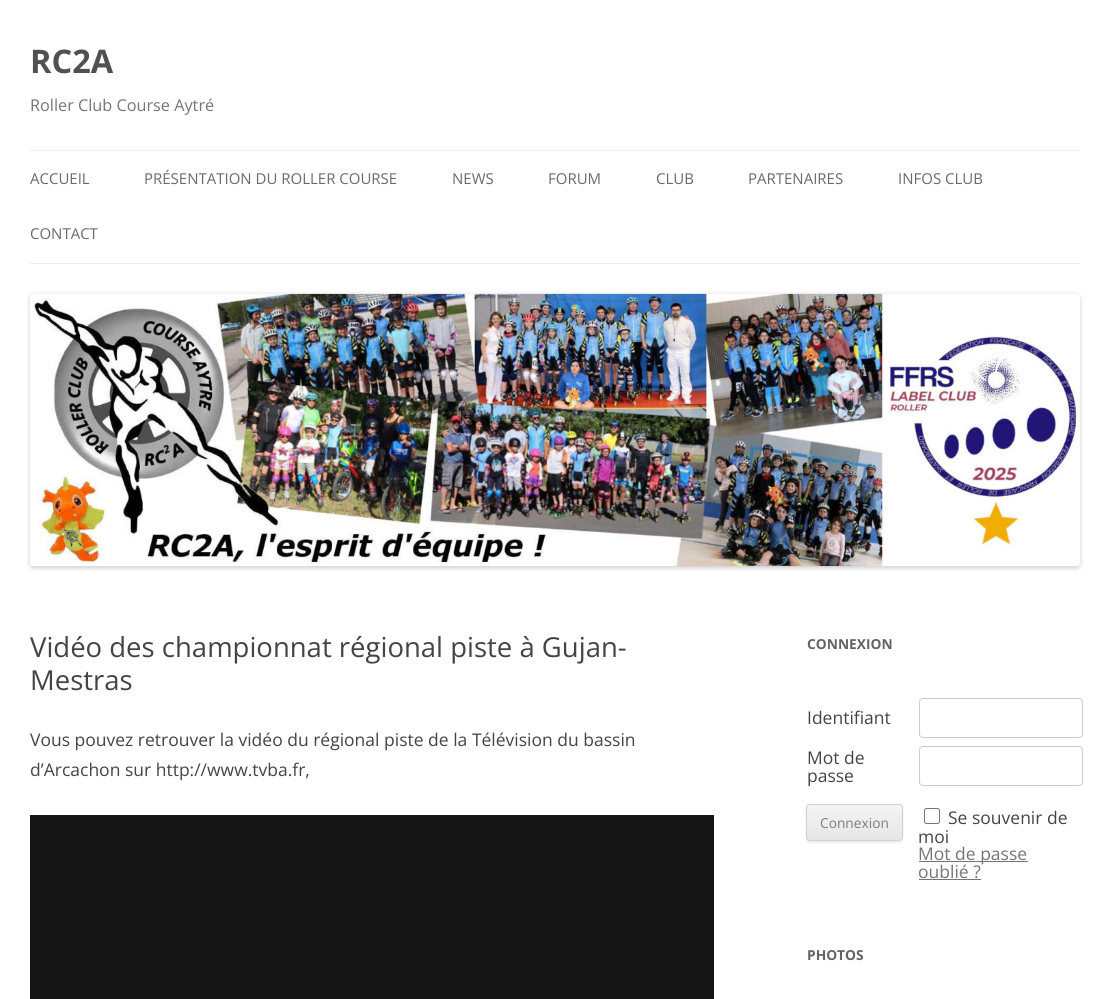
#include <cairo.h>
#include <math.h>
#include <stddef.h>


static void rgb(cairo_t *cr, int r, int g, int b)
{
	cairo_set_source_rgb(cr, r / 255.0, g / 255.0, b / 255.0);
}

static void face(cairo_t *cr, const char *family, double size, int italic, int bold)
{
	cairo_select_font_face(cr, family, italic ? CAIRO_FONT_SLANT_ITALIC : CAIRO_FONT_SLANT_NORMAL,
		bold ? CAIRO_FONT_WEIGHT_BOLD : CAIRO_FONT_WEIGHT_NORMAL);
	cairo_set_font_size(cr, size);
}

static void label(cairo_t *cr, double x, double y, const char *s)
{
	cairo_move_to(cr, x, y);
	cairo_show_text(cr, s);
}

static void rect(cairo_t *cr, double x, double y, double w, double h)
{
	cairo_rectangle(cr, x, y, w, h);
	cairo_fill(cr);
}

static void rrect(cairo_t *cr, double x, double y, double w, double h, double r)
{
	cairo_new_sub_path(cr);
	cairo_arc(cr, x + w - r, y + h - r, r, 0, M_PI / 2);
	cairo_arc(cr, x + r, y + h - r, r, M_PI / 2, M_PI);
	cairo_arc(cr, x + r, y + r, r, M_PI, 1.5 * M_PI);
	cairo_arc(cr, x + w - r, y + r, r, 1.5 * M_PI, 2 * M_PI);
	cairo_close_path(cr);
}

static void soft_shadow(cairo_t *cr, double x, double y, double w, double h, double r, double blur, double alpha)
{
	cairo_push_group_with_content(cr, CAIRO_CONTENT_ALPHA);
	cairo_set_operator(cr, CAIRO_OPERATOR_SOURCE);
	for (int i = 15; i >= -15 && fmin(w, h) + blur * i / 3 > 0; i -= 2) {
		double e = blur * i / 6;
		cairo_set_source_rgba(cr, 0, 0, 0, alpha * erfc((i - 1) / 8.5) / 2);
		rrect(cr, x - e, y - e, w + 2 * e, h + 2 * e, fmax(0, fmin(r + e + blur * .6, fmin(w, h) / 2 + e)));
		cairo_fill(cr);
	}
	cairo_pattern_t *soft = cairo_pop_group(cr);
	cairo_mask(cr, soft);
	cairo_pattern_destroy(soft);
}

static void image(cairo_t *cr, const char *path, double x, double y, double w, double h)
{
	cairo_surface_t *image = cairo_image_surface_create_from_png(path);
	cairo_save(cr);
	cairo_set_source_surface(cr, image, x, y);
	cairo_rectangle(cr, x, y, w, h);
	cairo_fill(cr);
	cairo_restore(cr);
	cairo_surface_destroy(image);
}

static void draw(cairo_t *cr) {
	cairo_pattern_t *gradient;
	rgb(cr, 255, 255, 255);
	cairo_paint(cr);
	face(cr, "Open Sans", 32.5, 0, 1);
	rgb(cr, 81, 81, 81);
	label(cr, 30, 73, "RC2A");
	face(cr, "Open Sans", 16.25, 0, 0);
	rgb(cr, 117, 117, 117);
	label(cr, 30, 111, "Roller Club Course Aytré");
	rgb(cr, 237, 237, 237);
	rect(cr, 30, 150, 1050, 1);
	rect(cr, 30, 263, 1050, 1);
	face(cr, "Open Sans", 15, 0, 0);
	rgb(cr, 106, 106, 106);
	label(cr, 30, 184, "ACCUEIL");
	label(cr, 144, 184, "PRÉSENTATION DU ROLLER COURSE");
	label(cr, 452, 184, "NEWS");
	label(cr, 548, 184, "FORUM");
	label(cr, 656, 184, "CLUB");
	label(cr, 748, 184, "PARTENAIRES");
	label(cr, 898, 184, "INFOS CLUB");
	label(cr, 30, 239, "CONTACT");
	rgb(cr, 0, 0, 0);
	soft_shadow(cr, 30, 295, 1050, 273, 4, 2.5, 0.2);
	image(cr, "image0.png", 30, 293, 1050, 274);
	face(cr, "Open Sans", 27.5, 0, 0);
	rgb(cr, 68, 68, 68);
	label(cr, 30, 657, "Vidéo des championnat régional piste à Gujan-");
	label(cr, 30, 690, "Mestras");
	face(cr, "Open Sans", 17.5, 0, 0);
	label(cr, 30, 746, "Vous pouvez retrouver la vidéo du régional piste de la Télévision du bassin");
	label(cr, 30, 776, "d’Arcachon sur http://www.tvba.fr,");
	rgb(cr, 21, 21, 21);
	rect(cr, 30, 815, 684, 184);
	face(cr, "Open Sans", 13.75, 0, 1);
	rgb(cr, 99, 99, 99);
	label(cr, 807, 649, "CONNEXION");
	face(cr, "Open Sans", 17.5, 0, 0);
	rgb(cr, 68, 68, 68);
	label(cr, 807, 724, "Identifiant");
	rrect(cr, 919.5, 698.5, 163, 39, 3.5);
	rgb(cr, 204, 204, 204);
	cairo_set_line_width(cr, 1);
	cairo_stroke(cr);
	rgb(cr, 68, 68, 68);
	label(cr, 807, 764, "Mot de");
	label(cr, 807, 782, "passe");
	rrect(cr, 919.5, 746.5, 163, 39, 3.5);
	rgb(cr, 204, 204, 204);
	cairo_stroke(cr);
	rgb(cr, 64, 64, 64);
	soft_shadow(cr, 806, 805, 97, 38, 4, 1, 0.1);
	cairo_save(cr);
	rrect(cr, 806, 804, 97, 37, 4);
	cairo_clip(cr);
	gradient = cairo_pattern_create_linear(854, 805, 854, 840);
	cairo_pattern_add_color_stop_rgba(gradient, 0, 0.957, 0.957, 0.957, 1);
	cairo_pattern_add_color_stop_rgba(gradient, 1, 0.902, 0.902, 0.902, 1);
	cairo_set_source(cr, gradient);
	cairo_pattern_destroy(gradient);
	rect(cr, 806, 805, 97, 35);
	cairo_restore(cr);
	rrect(cr, 806.5, 804.5, 96, 36, 3.5);
	rgb(cr, 210, 210, 210);
	cairo_stroke(cr);
	face(cr, "Open Sans", 13.75, 0, 0);
	rgb(cr, 124, 124, 124);
	label(cr, 820, 828, "Connexion");
	rrect(cr, 924.5, 808.5, 15, 15, 2);
	rgb(cr, 118, 118, 118);
	cairo_stroke(cr);
	face(cr, "Open Sans", 17.5, 0, 0);
	rgb(cr, 68, 68, 68);
	label(cr, 948, 824, "Se souvenir de");
	label(cr, 918, 843, "moi");
	rgb(cr, 117, 117, 117);
	rect(cr, 919, 861, 109, 1);
	label(cr, 918, 860, "Mot de passe");
	label(cr, 918, 878, "oublié ?");
	rect(cr, 919, 879, 62, 1);
	face(cr, "Open Sans", 13.75, 0, 1);
	rgb(cr, 99, 99, 99);
	label(cr, 807, 960, "PHOTOS");
}

int main(void) {
	cairo_surface_t *surface = cairo_image_surface_create(CAIRO_FORMAT_RGB24, 1110, 999);
	cairo_t *cr = cairo_create(surface);
	cairo_font_options_t *options = cairo_font_options_create();
	cairo_font_options_set_hint_metrics(options, CAIRO_HINT_METRICS_OFF);
	cairo_font_options_set_hint_style(options, CAIRO_HINT_STYLE_NONE);
	cairo_set_font_options(cr, options);
	cairo_set_miter_limit(cr, 4);
	draw(cr);
	cairo_surface_write_to_png(surface, "render.png");
	cairo_font_options_destroy(options);
	cairo_destroy(cr);
	cairo_surface_destroy(surface);
	return 0;
}
